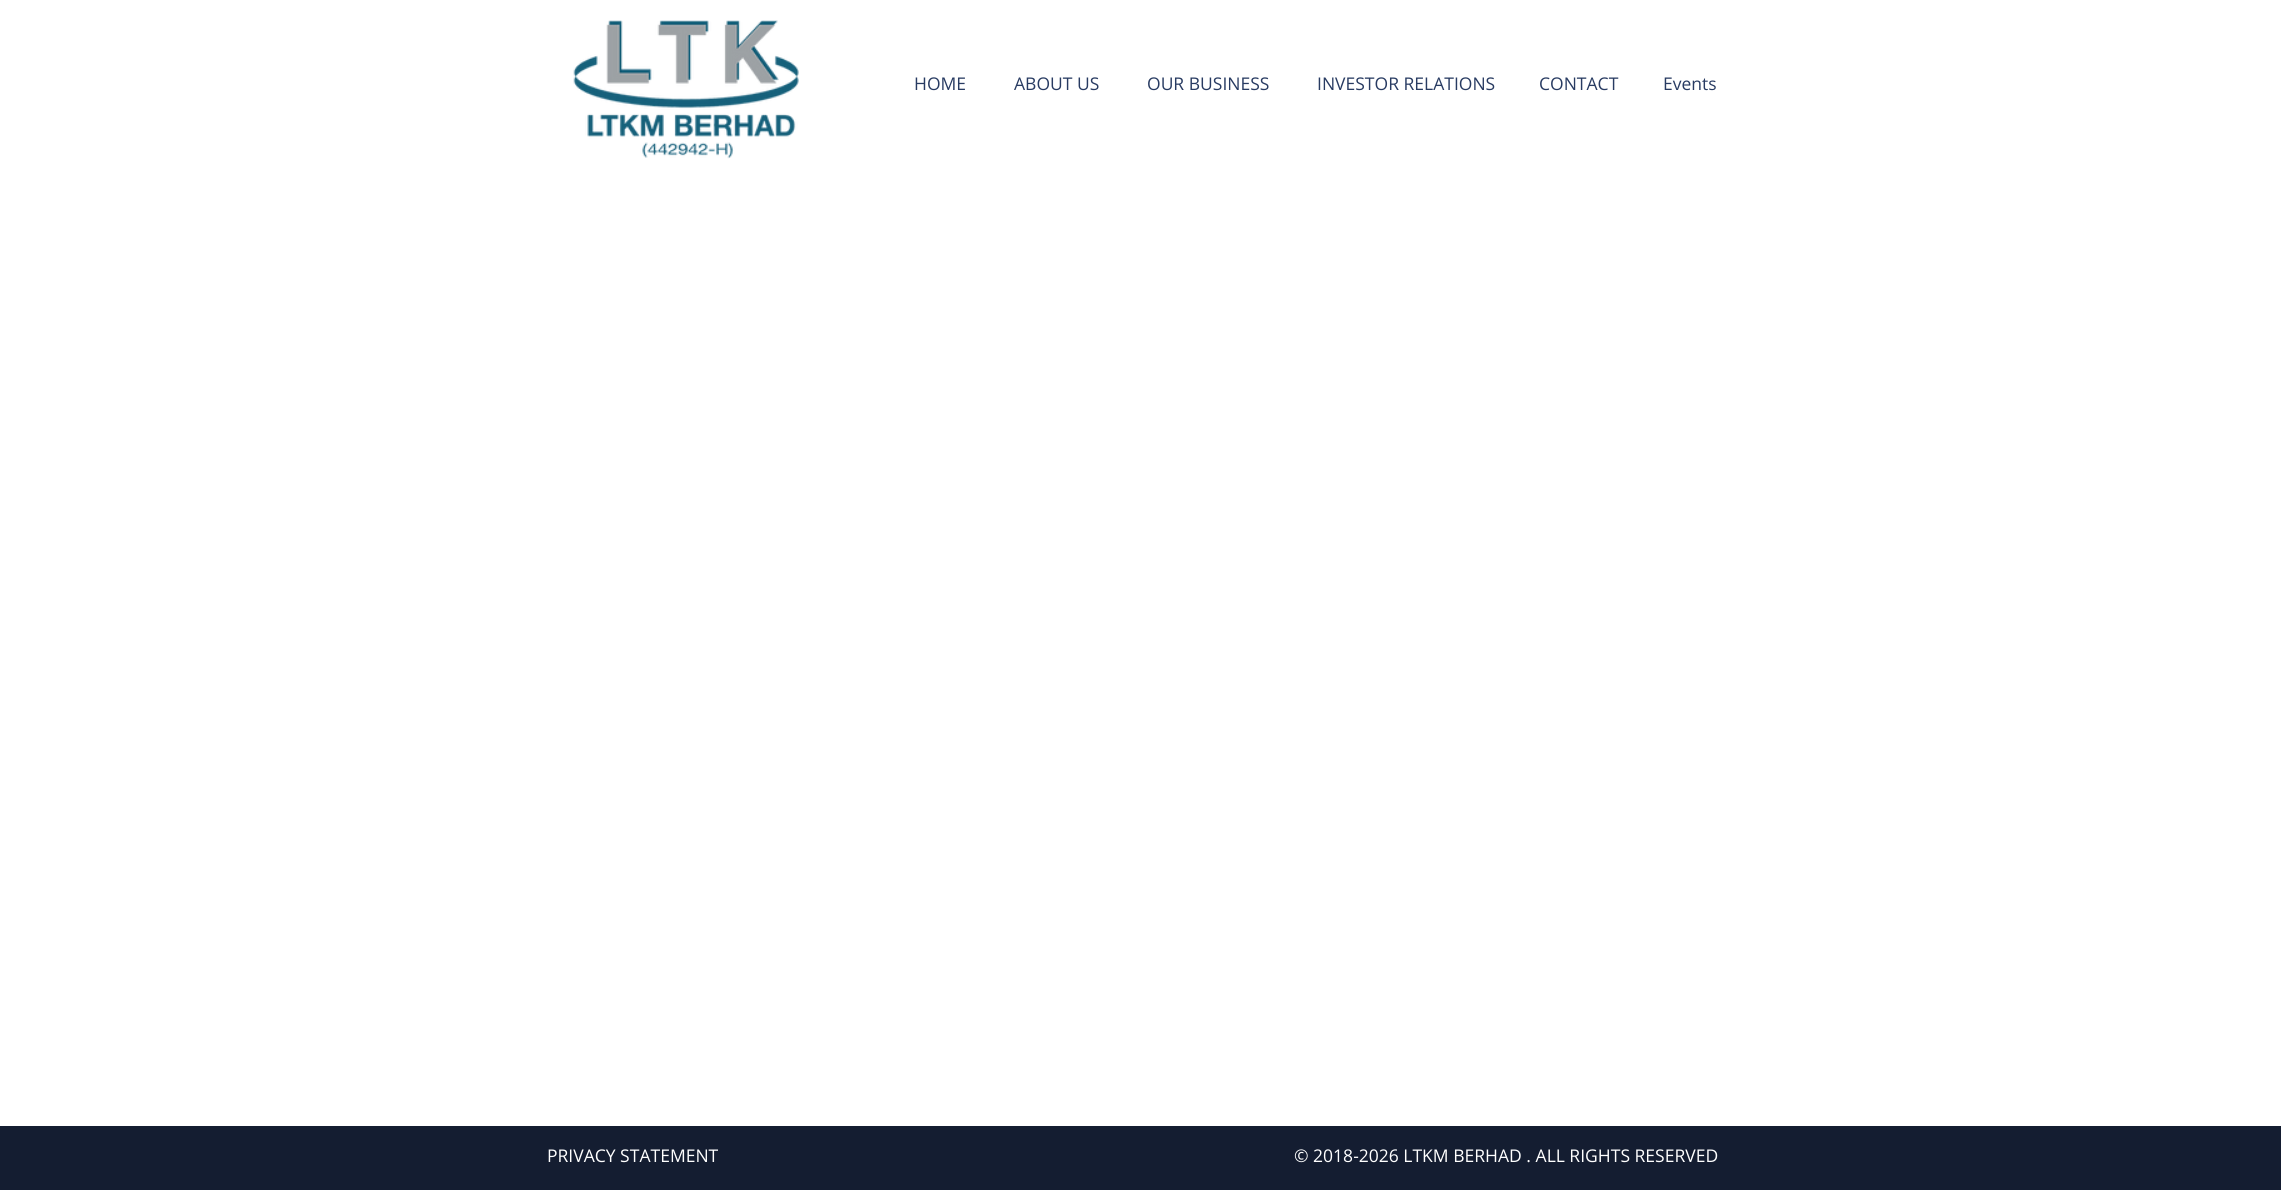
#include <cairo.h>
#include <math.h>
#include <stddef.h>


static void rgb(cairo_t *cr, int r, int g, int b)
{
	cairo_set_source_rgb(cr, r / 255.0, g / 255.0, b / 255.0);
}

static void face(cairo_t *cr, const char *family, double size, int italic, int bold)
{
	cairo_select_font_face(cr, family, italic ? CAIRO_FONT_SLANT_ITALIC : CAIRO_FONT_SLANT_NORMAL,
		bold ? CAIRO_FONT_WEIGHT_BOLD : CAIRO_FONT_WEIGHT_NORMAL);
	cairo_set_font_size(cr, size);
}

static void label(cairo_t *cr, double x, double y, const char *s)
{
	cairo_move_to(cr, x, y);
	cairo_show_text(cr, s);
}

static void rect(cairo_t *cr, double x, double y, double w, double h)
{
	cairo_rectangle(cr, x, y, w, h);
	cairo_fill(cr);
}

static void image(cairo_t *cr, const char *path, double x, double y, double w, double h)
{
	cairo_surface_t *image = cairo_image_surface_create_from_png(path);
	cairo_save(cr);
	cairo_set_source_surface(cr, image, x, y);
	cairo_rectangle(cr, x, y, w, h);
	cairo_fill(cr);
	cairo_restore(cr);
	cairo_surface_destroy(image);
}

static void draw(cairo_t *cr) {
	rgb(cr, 255, 255, 255);
	cairo_paint(cr);
	image(cr, "image0.png", 573, 20, 226, 139);
	face(cr, "Open Sans", 17.5, 0, 0);
	rgb(cr, 40, 59, 98);
	label(cr, 914, 90, "HOME");
	label(cr, 1014, 90, "ABOUT US");
	label(cr, 1147, 90, "OUR BUSINESS");
	label(cr, 1317, 90, "INVESTOR RELATIONS");
	label(cr, 1539, 90, "CONTACT");
	label(cr, 1663, 90, "Events");
	rgb(cr, 20, 29, 49);
	rect(cr, 0, 1126, 2281, 64);
	rgb(cr, 255, 255, 255);
	label(cr, 547, 1162, "PRIVACY STATEMENT");
	label(cr, 1294, 1162, "© 2018-2026 LTKM BERHAD . ALL RIGHTS RESERVED");
}

int main(void) {
	cairo_surface_t *surface = cairo_image_surface_create(CAIRO_FORMAT_RGB24, 2281, 1190);
	cairo_t *cr = cairo_create(surface);
	cairo_font_options_t *options = cairo_font_options_create();
	cairo_font_options_set_hint_metrics(options, CAIRO_HINT_METRICS_OFF);
	cairo_font_options_set_hint_style(options, CAIRO_HINT_STYLE_NONE);
	cairo_set_font_options(cr, options);
	cairo_set_miter_limit(cr, 4);
	draw(cr);
	cairo_surface_write_to_png(surface, "render.png");
	cairo_font_options_destroy(options);
	cairo_destroy(cr);
	cairo_surface_destroy(surface);
	return 0;
}
